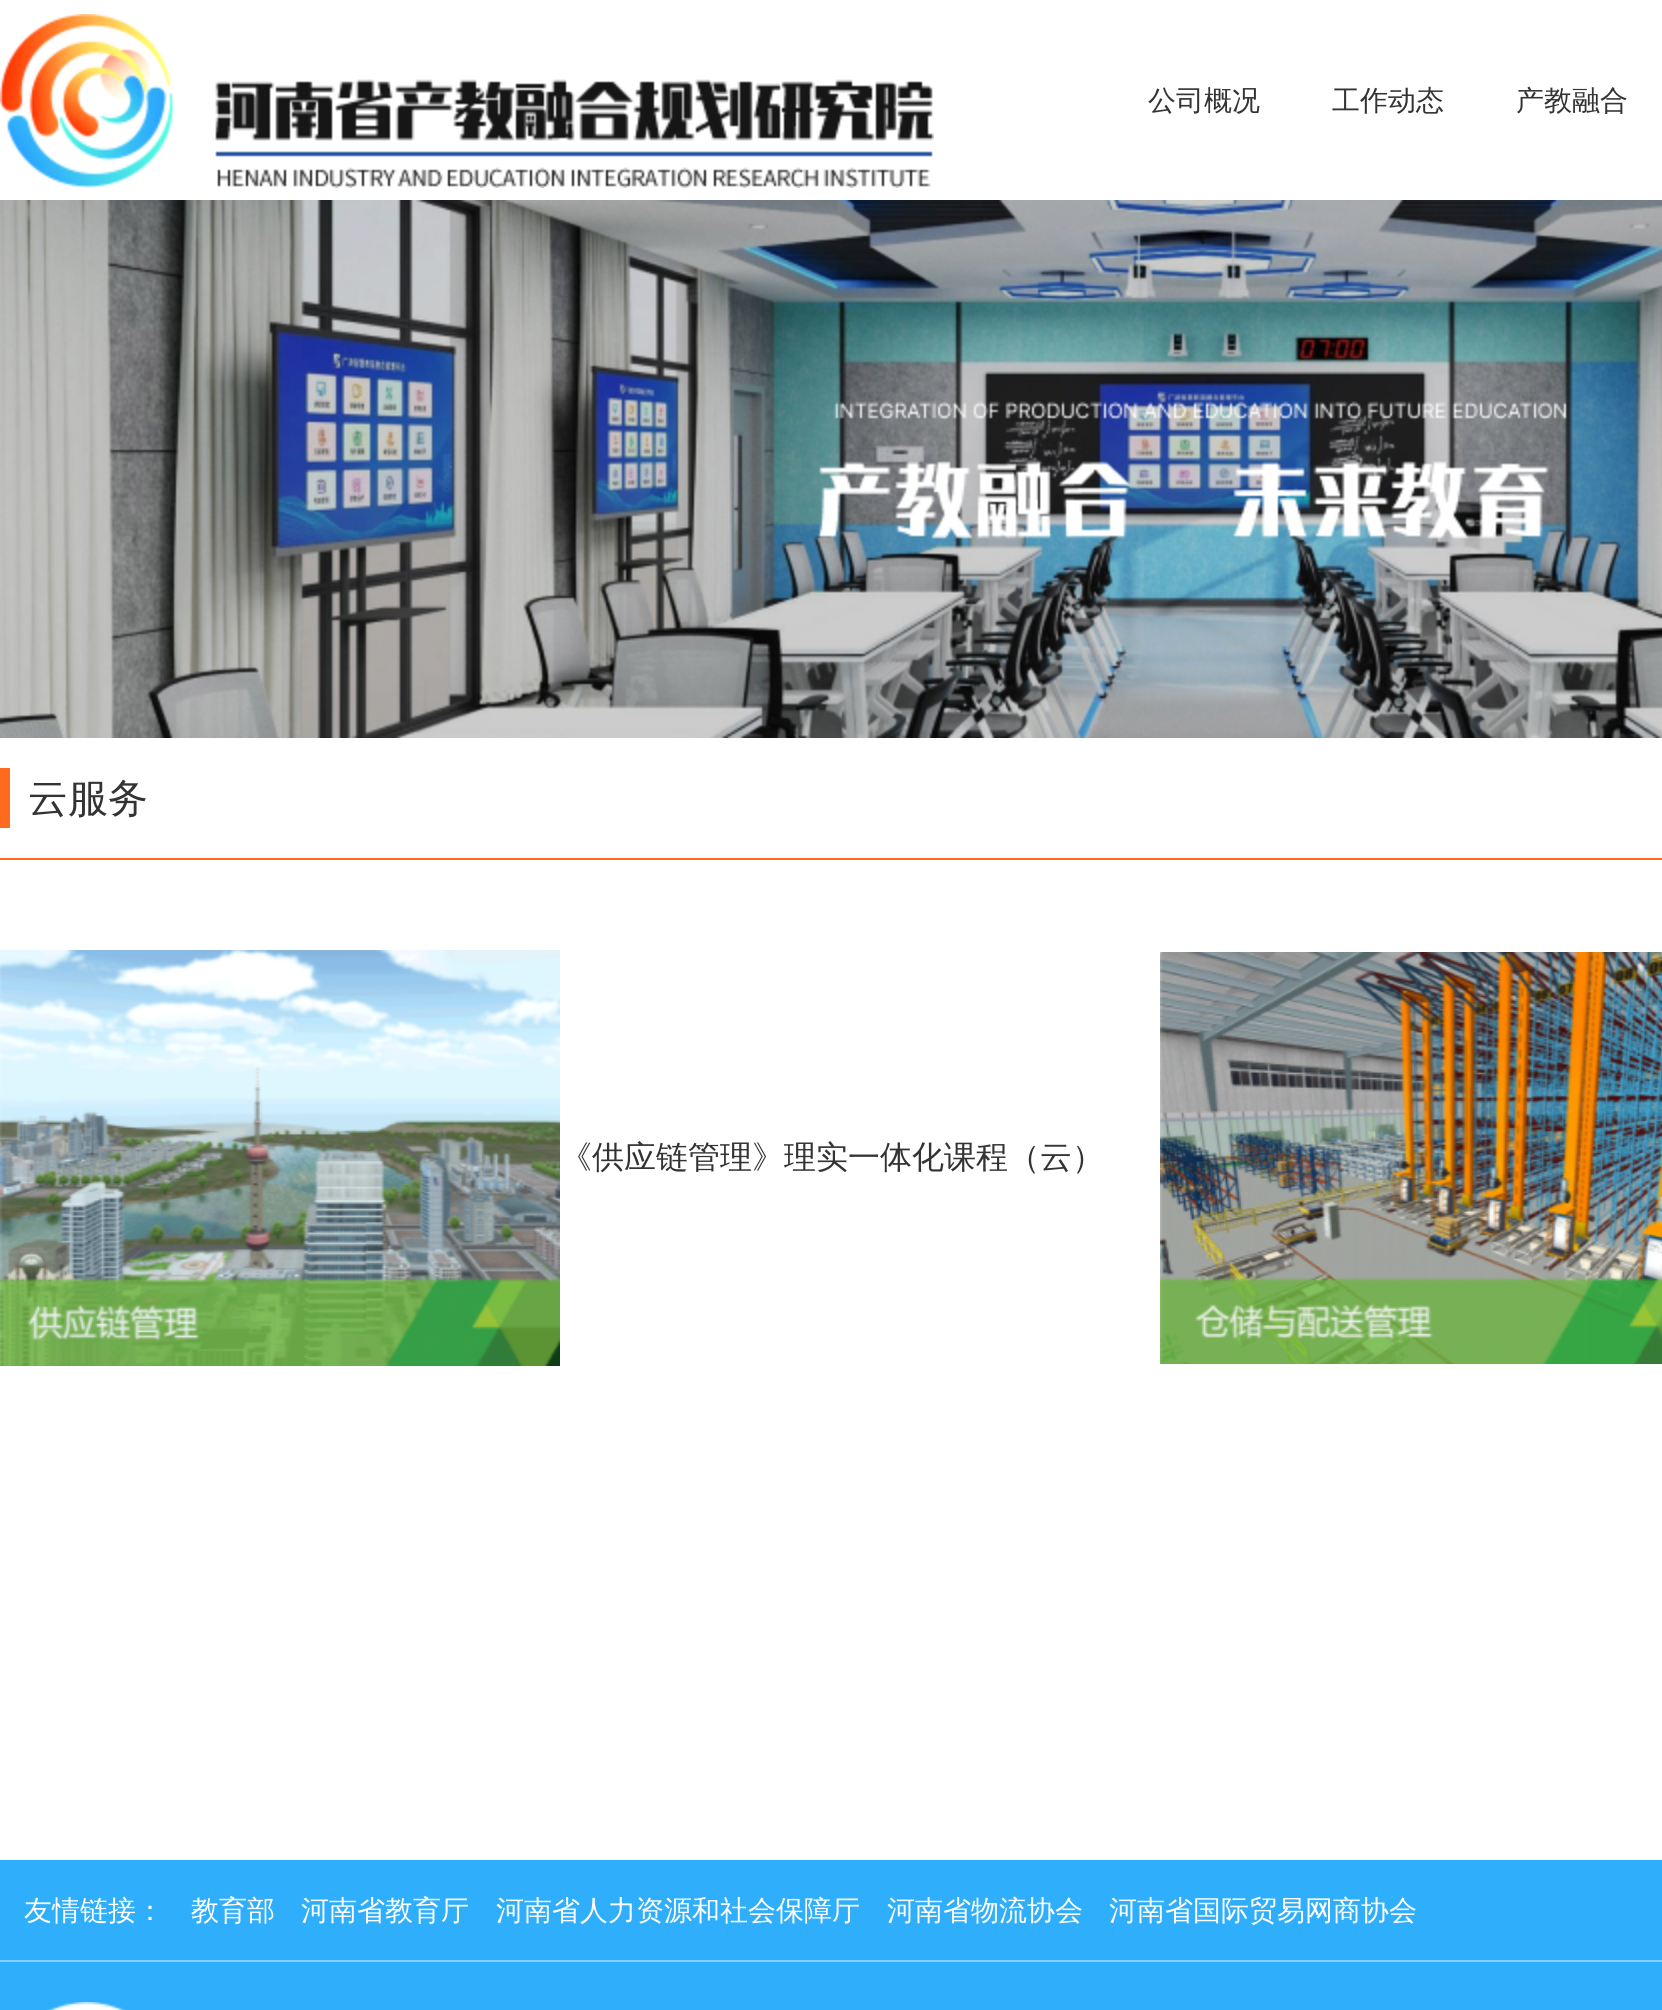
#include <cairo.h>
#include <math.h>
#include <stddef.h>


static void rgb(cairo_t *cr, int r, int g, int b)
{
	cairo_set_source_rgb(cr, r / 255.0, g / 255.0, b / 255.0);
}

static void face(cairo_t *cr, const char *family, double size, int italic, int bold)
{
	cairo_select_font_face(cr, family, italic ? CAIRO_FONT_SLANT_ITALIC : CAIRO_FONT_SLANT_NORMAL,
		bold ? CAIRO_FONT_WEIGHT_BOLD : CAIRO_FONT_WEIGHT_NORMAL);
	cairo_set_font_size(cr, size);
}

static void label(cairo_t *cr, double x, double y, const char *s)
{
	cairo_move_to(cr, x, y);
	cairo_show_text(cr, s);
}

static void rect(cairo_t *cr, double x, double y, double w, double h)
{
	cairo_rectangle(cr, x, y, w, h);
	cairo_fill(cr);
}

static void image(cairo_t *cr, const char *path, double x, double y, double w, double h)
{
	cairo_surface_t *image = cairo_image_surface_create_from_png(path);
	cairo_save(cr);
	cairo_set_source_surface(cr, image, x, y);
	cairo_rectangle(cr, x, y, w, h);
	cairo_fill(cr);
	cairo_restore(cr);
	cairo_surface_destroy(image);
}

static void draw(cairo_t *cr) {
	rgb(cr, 255, 255, 255);
	cairo_paint(cr);
	image(cr, "image0.png", 0, 14, 934, 174);
	face(cr, "WenQuanYi Zen Hei Medium", 28, 0, 0);
	rgb(cr, 51, 51, 51);
	label(cr, 1148, 110, "公司概况");
	label(cr, 1332, 110, "工作动态");
	label(cr, 1516, 110, "产教融合");
	image(cr, "image1.png", 0, 200, 1662, 538);
	rgb(cr, 255, 106, 31);
	rect(cr, 0, 858, 1662, 2);
	rect(cr, 0, 768, 10, 60);
	face(cr, "WenQuanYi Zen Hei Medium", 40, 0, 0);
	rgb(cr, 51, 51, 51);
	label(cr, 28, 812, "云服务");
	image(cr, "image2.png", 0, 950, 560, 416);
	face(cr, "WenQuanYi Zen Hei Medium", 32, 0, 0);
	label(cr, 560, 1168, "《供应链管理》理实一体化课程（云）");
	image(cr, "image3.png", 1160, 952, 502, 412);
	rgb(cr, 47, 174, 251);
	rect(cr, 0, 1860, 1662, 150);
	rgb(cr, 130, 206, 253);
	rect(cr, 0, 1960, 1662, 2);
	face(cr, "WenQuanYi Zen Hei Medium", 28, 0, 0);
	rgb(cr, 255, 255, 255);
	label(cr, 24, 1920, "友情链接：");
	label(cr, 191, 1920, "教育部");
	label(cr, 301, 1920, "河南省教育厅");
	label(cr, 496, 1920, "河南省人力资源和社会保障厅");
	label(cr, 887, 1920, "河南省物流协会");
	label(cr, 1109, 1920, "河南省国际贸易网商协会");
	image(cr, "image4.png", 47, 2002, 79, 8);
}

int main(void) {
	cairo_surface_t *surface = cairo_image_surface_create(CAIRO_FORMAT_RGB24, 1662, 2010);
	cairo_t *cr = cairo_create(surface);
	cairo_font_options_t *options = cairo_font_options_create();
	cairo_font_options_set_hint_metrics(options, CAIRO_HINT_METRICS_OFF);
	cairo_font_options_set_hint_style(options, CAIRO_HINT_STYLE_NONE);
	cairo_set_font_options(cr, options);
	cairo_set_miter_limit(cr, 4);
	draw(cr);
	cairo_surface_write_to_png(surface, "render.png");
	cairo_font_options_destroy(options);
	cairo_destroy(cr);
	cairo_surface_destroy(surface);
	return 0;
}
